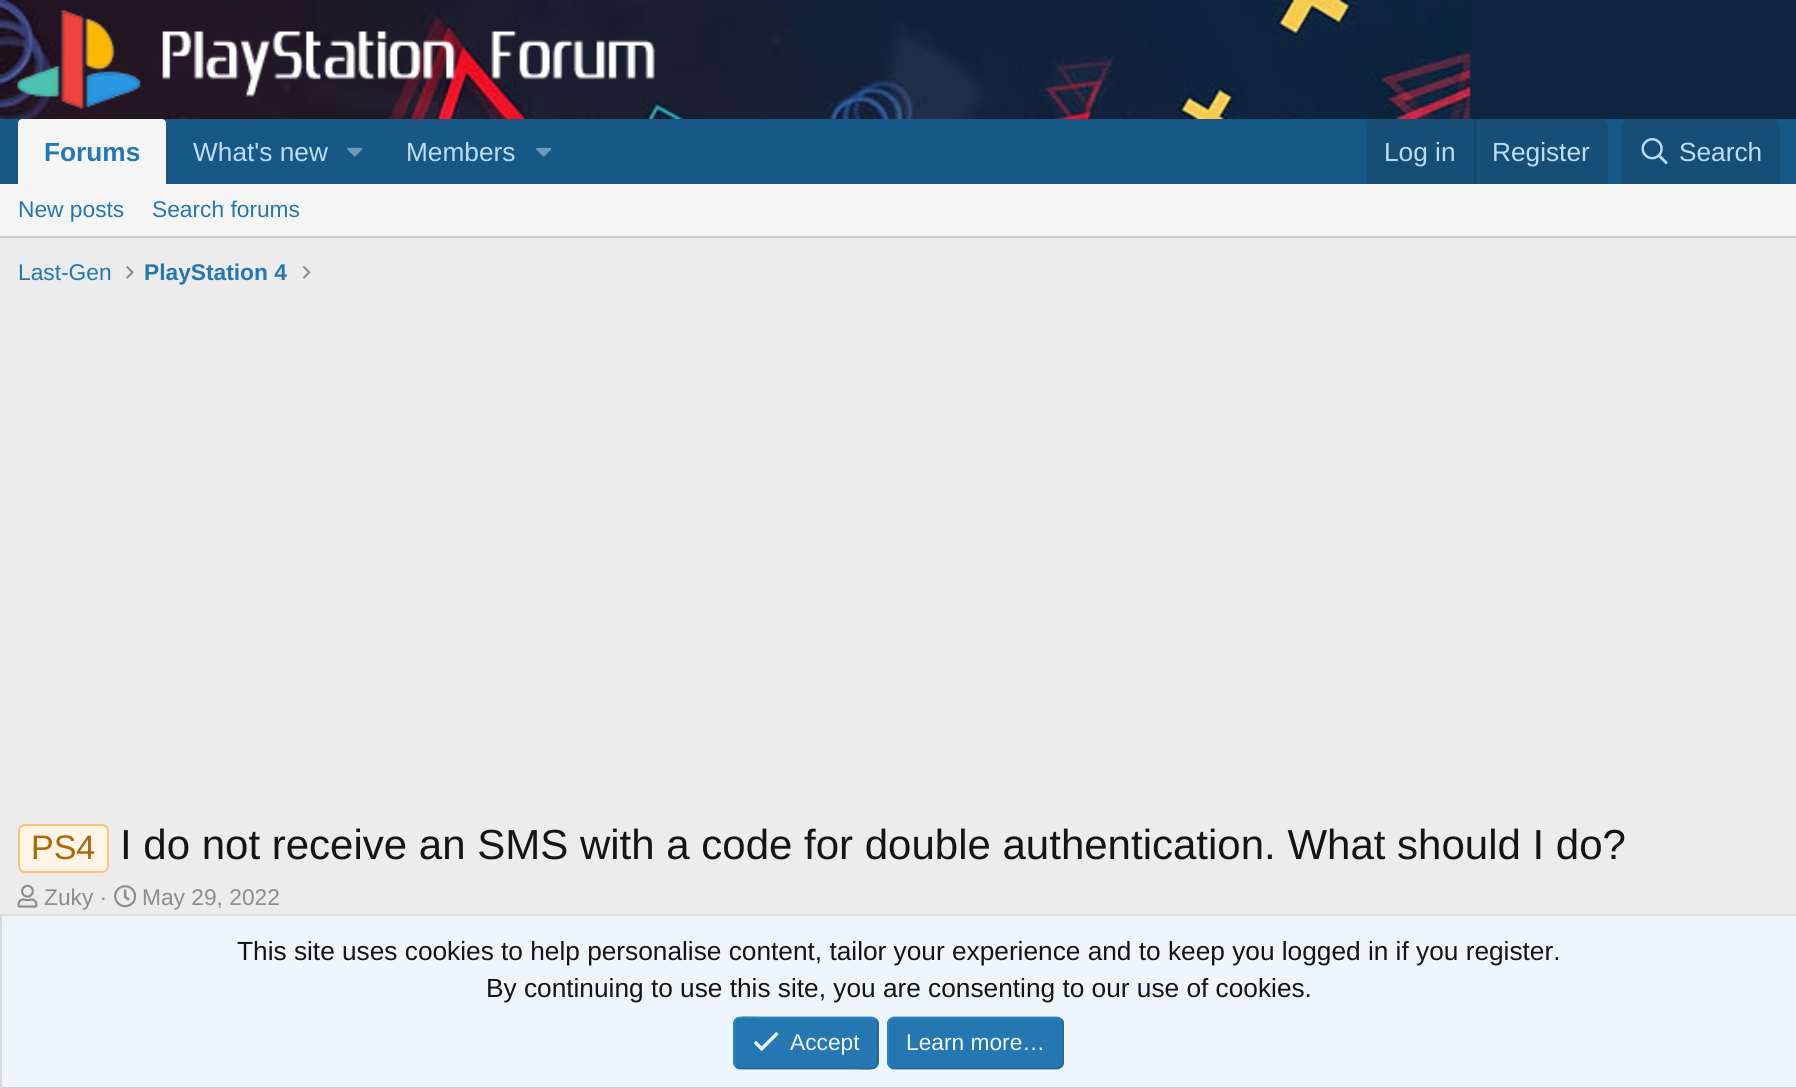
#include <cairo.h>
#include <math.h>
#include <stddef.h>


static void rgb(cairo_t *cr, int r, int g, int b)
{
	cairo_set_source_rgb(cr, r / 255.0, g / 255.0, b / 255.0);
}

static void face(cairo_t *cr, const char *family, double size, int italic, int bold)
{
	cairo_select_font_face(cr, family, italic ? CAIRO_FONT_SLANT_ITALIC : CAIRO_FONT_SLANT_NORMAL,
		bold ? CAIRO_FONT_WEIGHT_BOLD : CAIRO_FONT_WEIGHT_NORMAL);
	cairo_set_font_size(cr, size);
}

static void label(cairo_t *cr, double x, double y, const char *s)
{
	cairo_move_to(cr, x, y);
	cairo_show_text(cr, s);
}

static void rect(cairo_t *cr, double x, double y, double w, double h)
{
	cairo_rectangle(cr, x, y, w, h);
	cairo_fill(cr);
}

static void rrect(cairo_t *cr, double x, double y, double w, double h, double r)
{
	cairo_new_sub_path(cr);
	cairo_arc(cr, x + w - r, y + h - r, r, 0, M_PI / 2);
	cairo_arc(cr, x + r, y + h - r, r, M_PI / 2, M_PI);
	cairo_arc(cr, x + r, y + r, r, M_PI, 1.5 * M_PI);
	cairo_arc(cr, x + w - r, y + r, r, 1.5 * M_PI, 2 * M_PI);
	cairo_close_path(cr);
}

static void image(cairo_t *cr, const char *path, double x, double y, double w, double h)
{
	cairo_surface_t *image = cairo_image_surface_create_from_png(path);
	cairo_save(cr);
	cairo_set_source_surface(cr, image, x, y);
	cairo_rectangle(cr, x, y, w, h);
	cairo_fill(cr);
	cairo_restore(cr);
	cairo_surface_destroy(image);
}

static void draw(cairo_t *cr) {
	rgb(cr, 236, 236, 236);
	cairo_paint(cr);
	image(cr, "image0.png", 0, 0, 1796, 119);
	image(cr, "image1.png", 17, 10, 638, 99);
	rgb(cr, 24, 88, 134);
	rect(cr, 0, 119, 1796, 65);
	rgb(cr, 245, 245, 245);
	cairo_new_path(cr);
	cairo_move_to(cr, 22, 119);
	cairo_line_to(cr, 162, 119);
	cairo_curve_to(cr, 164, 119, 166, 121, 166, 123);
	cairo_line_to(cr, 166, 184);
	cairo_line_to(cr, 18, 184);
	cairo_line_to(cr, 18, 123);
	cairo_curve_to(cr, 18, 121, 20, 119, 22, 119);
	cairo_close_path(cr);
	cairo_fill(cr);
	face(cr, "Liberation Sans", 26.25, 0, 1);
	rgb(cr, 37, 119, 177);
	label(cr, 44, 161, "Forums");
	face(cr, "Liberation Sans", 26.25, 0, 0);
	rgb(cr, 188, 222, 245);
	label(cr, 193, 161, "What's new");
	image(cr, "image2.png", 347, 147, 16, 10);
	label(cr, 406, 161, "Members");
	image(cr, "image2.png", 536, 147, 16, 10);
	rgb(cr, 23, 78, 117);
	cairo_new_path(cr);
	cairo_move_to(cr, 1374, 119);
	cairo_line_to(cr, 1601, 119);
	cairo_curve_to(cr, 1605, 119, 1608, 122, 1608, 126);
	cairo_line_to(cr, 1608, 184);
	cairo_line_to(cr, 1367, 184);
	cairo_line_to(cr, 1367, 126);
	cairo_curve_to(cr, 1367, 122, 1370, 119, 1374, 119);
	cairo_close_path(cr);
	cairo_fill(cr);
	rgb(cr, 188, 222, 245);
	label(cr, 1384, 161, "Log in");
	rgb(cr, 23, 69, 102);
	rect(cr, 1474, 119, 2, 65);
	rgb(cr, 188, 222, 245);
	label(cr, 1492, 161, "Register");
	rgb(cr, 23, 78, 117);
	cairo_new_path(cr);
	cairo_move_to(cr, 1628, 119);
	cairo_line_to(cr, 1773, 119);
	cairo_curve_to(cr, 1777, 119, 1780, 122, 1780, 126);
	cairo_line_to(cr, 1780, 184);
	cairo_line_to(cr, 1621, 184);
	cairo_line_to(cr, 1621, 126);
	cairo_curve_to(cr, 1621, 122, 1624, 119, 1628, 119);
	cairo_close_path(cr);
	cairo_fill(cr);
	image(cr, "image3.png", 1641, 138, 27, 27);
	rgb(cr, 188, 222, 245);
	label(cr, 1679, 161, "Search");
	rgb(cr, 245, 245, 245);
	rect(cr, 0, 184, 1796, 52);
	rgb(cr, 203, 203, 203);
	rect(cr, 0, 236, 1796, 2);
	face(cr, "Liberation Sans", 22.75, 0, 0);
	rgb(cr, 37, 119, 177);
	label(cr, 18, 217, "New posts");
	label(cr, 152, 217, "Search forums");
	label(cr, 18, 280, "Last-Gen");
	image(cr, "image4.png", 126, 266, 8, 13);
	face(cr, "Liberation Sans", 22.75, 0, 1);
	label(cr, 144, 280, "PlayStation 4");
	image(cr, "image5.png", 302, 266, 9, 13);
	rgb(cr, 255, 244, 229);
	rrect(cr, 19, 825, 89, 47, 6);
	cairo_fill_preserve(cr);
	rgb(cr, 249, 196, 121);
	cairo_stroke(cr);
	face(cr, "Liberation Sans", 34, 0, 0);
	rgb(cr, 170, 103, 9);
	label(cr, 31, 859, "PS4");
	face(cr, "Liberation Sans", 42, 0, 0);
	rgb(cr, 20, 20, 20);
	label(cr, 120, 859, "I do not receive an SMS with a code for double authentication. What should I do?");
	image(cr, "image6.png", 17, 884, 21, 24);
	face(cr, "Liberation Sans", 22.75, 0, 0);
	rgb(cr, 140, 140, 140);
	label(cr, 44, 905, "Zuky ·");
	image(cr, "image7.png", 114, 885, 23, 23);
	label(cr, 142, 905, "May 29, 2022");
	rgb(cr, 237, 246, 253);
	rect(cr, 2, 916, 1794, 171);
	rgb(cr, 223, 223, 223);
	rect(cr, 0, 914, 1796, 2);
	rgb(cr, 203, 203, 203);
	rect(cr, 0, 1087, 1796, 1);
	rgb(cr, 216, 216, 216);
	rect(cr, 0, 914, 2, 174);
	face(cr, "Liberation Sans", 26.25, 0, 0);
	rgb(cr, 20, 20, 20);
	label(cr, 237, 960, "This site uses cookies to help personalise content, tailor your experience and to keep you logged in if you register.");
	label(cr, 486, 997, "By continuing to use this site, you are consenting to our use of cookies.");
	rgb(cr, 37, 119, 177);
	rrect(cr, 733, 1017, 146, 52, 7);
	cairo_fill(cr);
	cairo_new_path(cr);
	cairo_move_to(cr, 876, 1019.5);
	cairo_curve_to(cr, 878.5, 1022, 877.5, 1027, 877.5, 1030);
	cairo_line_to(cr, 877.5, 1043);
	cairo_curve_to(cr, 877.5, 1073, 881.5, 1068.5, 849.5, 1068.5);
	cairo_line_to(cr, 740, 1068.5);
	cairo_curve_to(cr, 738.5, 1068.5, 737, 1067.5, 736, 1066.5);
	rgb(cr, 33, 105, 156);
	cairo_set_line_width(cr, 1.8);
	cairo_stroke(cr);
	cairo_new_path(cr);
	cairo_move_to(cr, 736, 1066.5);
	cairo_curve_to(cr, 733, 1064, 734, 1059, 734, 1056);
	cairo_line_to(cr, 734, 1043);
	cairo_curve_to(cr, 734, 1013, 730.5, 1017.5, 762, 1017.5);
	cairo_line_to(cr, 871.5, 1017.5);
	cairo_curve_to(cr, 873, 1017.5, 874.5, 1018.5, 876, 1019.5);
	rgb(cr, 41, 133, 198);
	cairo_stroke(cr);
	image(cr, "image8.png", 754, 1032, 25, 19);
	face(cr, "Liberation Sans", 22.75, 0, 0);
	rgb(cr, 237, 246, 253);
	label(cr, 790, 1050, "Accept");
	rgb(cr, 37, 119, 177);
	rrect(cr, 887, 1017, 177, 52, 7);
	cairo_fill(cr);
	cairo_new_path(cr);
	cairo_move_to(cr, 1061.5, 1019.5);
	cairo_curve_to(cr, 1062.5, 1020.5, 1063, 1022, 1063, 1024);
	cairo_line_to(cr, 1063, 1062);
	cairo_curve_to(cr, 1063, 1064, 1062.5, 1065.5, 1061.5, 1066.5);
	cairo_curve_to(cr, 1060, 1067.5, 1058.5, 1068.5, 1057, 1068.5);
	cairo_line_to(cr, 894, 1068.5);
	cairo_curve_to(cr, 892.5, 1068.5, 891, 1067.5, 890, 1066.5);
	rgb(cr, 33, 105, 156);
	cairo_stroke(cr);
	cairo_new_path(cr);
	cairo_move_to(cr, 890, 1066.5);
	cairo_curve_to(cr, 889, 1065.5, 888, 1064, 888, 1062);
	cairo_line_to(cr, 888, 1024);
	cairo_curve_to(cr, 888, 1022, 889, 1020.5, 890, 1019.5);
	cairo_curve_to(cr, 891, 1018.5, 892.5, 1017.5, 894, 1017.5);
	cairo_line_to(cr, 1057, 1017.5);
	cairo_curve_to(cr, 1058.5, 1017.5, 1060, 1018.5, 1061.5, 1019.5);
	rgb(cr, 41, 133, 198);
	cairo_stroke(cr);
	rgb(cr, 237, 246, 253);
	label(cr, 906, 1050, "Learn more…");
}

int main(void) {
	cairo_surface_t *surface = cairo_image_surface_create(CAIRO_FORMAT_RGB24, 1796, 1088);
	cairo_t *cr = cairo_create(surface);
	cairo_font_options_t *options = cairo_font_options_create();
	cairo_font_options_set_hint_metrics(options, CAIRO_HINT_METRICS_OFF);
	cairo_font_options_set_hint_style(options, CAIRO_HINT_STYLE_NONE);
	cairo_set_font_options(cr, options);
	cairo_set_miter_limit(cr, 4);
	draw(cr);
	cairo_surface_write_to_png(surface, "render.png");
	cairo_font_options_destroy(options);
	cairo_destroy(cr);
	cairo_surface_destroy(surface);
	return 0;
}
